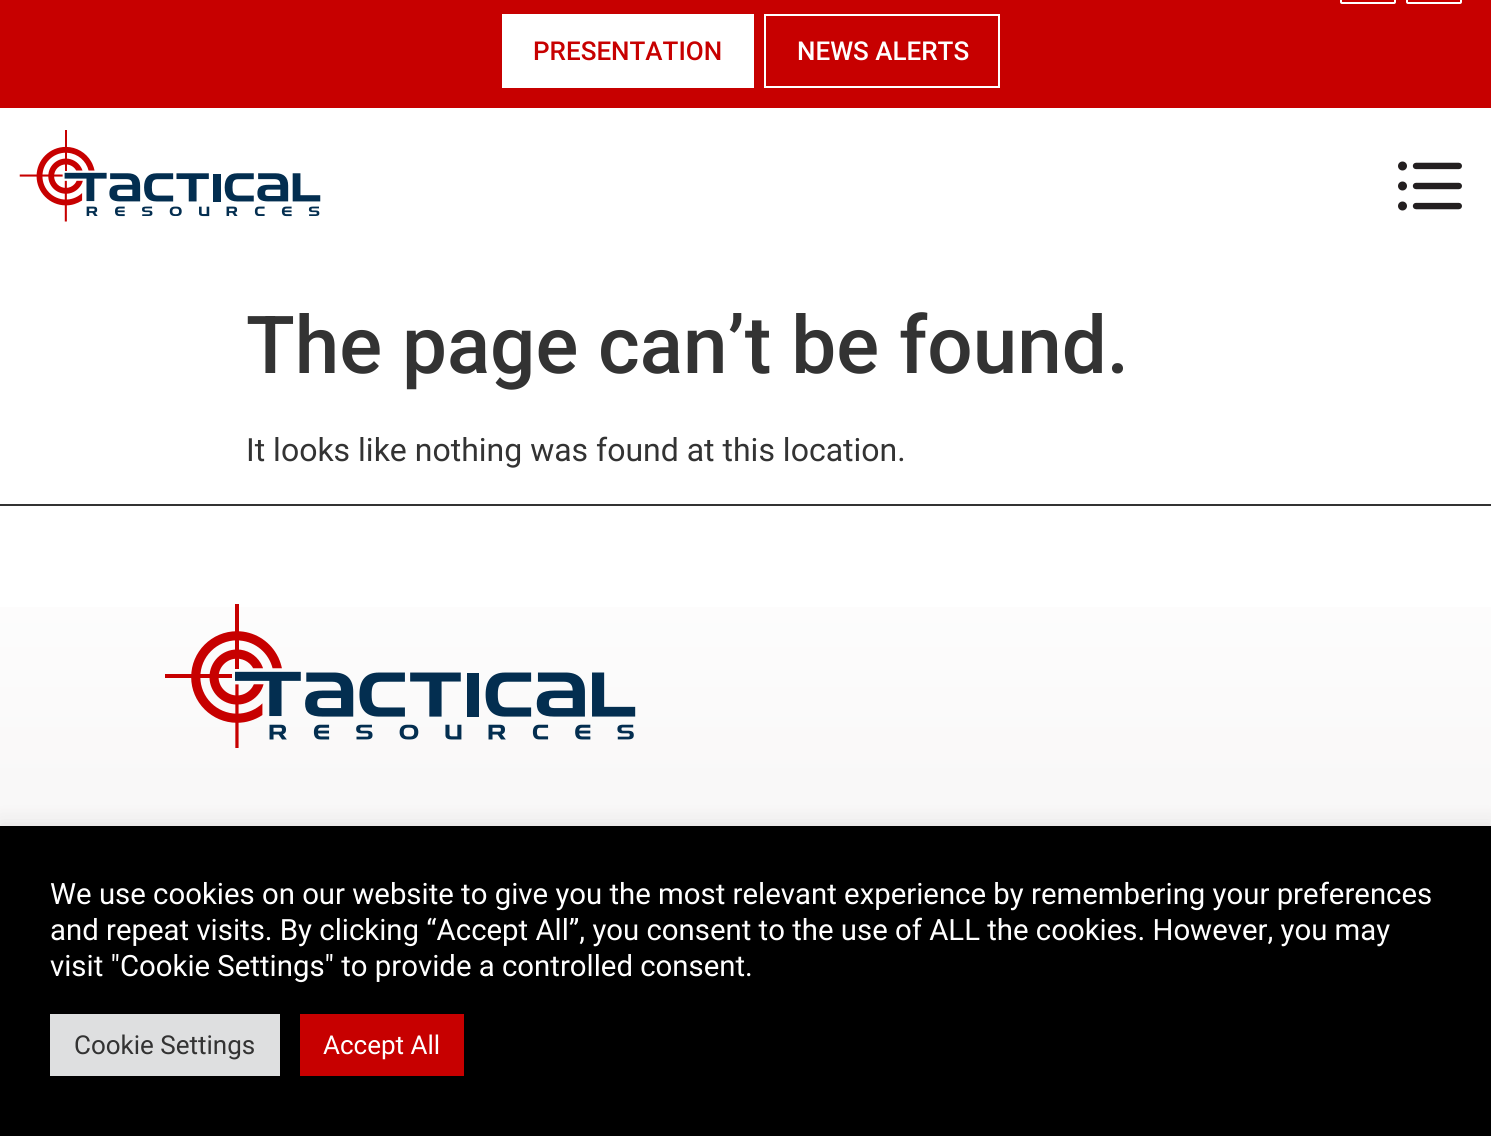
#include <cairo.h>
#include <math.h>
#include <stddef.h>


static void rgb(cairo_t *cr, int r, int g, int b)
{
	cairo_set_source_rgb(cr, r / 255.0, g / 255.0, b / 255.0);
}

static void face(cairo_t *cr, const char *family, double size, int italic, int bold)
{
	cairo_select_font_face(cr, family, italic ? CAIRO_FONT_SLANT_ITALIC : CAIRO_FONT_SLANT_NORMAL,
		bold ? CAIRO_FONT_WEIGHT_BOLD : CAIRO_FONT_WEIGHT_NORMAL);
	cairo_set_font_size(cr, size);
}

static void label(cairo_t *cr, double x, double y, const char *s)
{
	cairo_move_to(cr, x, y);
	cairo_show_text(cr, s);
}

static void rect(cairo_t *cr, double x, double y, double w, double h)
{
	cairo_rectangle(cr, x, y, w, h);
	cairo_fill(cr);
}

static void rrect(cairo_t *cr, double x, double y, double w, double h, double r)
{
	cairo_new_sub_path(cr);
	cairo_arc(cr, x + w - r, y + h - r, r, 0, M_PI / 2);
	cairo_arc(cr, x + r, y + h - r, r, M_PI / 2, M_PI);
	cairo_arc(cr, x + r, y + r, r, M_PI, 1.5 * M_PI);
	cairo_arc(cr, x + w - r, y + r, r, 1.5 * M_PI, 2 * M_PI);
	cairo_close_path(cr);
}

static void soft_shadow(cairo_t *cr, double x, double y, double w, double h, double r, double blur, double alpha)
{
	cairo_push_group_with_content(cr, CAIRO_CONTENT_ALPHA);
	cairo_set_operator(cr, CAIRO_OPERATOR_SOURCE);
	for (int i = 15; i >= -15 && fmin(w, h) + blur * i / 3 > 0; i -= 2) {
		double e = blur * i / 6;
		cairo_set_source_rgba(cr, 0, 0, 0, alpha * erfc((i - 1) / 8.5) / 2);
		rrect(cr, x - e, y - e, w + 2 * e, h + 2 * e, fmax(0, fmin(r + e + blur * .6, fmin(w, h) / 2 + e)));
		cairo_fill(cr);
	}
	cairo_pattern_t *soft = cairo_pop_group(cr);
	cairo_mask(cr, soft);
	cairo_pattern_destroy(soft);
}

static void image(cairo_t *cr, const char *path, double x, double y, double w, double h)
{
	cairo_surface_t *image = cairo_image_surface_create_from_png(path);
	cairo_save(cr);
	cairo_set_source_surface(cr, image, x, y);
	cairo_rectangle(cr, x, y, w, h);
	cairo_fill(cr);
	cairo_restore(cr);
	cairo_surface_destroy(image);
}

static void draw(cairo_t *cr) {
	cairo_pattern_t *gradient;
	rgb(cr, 255, 255, 255);
	cairo_paint(cr);
	rgb(cr, 199, 0, 0);
	rect(cr, 0, 0, 1491, 108);
	rrect(cr, 1341, -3, 54, 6, 1);
	rgb(cr, 255, 255, 255);
	cairo_stroke(cr);
	rrect(cr, 1407, -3, 54, 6, 1);
	cairo_stroke(cr);
	rect(cr, 502, 14, 252, 74);
	face(cr, "Roboto Medium", 26, 0, 0);
	rgb(cr, 199, 0, 0);
	label(cr, 533, 60, "PRESENTATION");
	cairo_rectangle(cr, 765, 15, 234, 72);
	rgb(cr, 255, 255, 255);
	cairo_stroke(cr);
	label(cr, 797, 60, "NEWS ALERTS");
	image(cr, "image0.png", 19, 130, 302, 92);
	image(cr, "image1.png", 1398, 161, 64, 50);
	face(cr, "Roboto Medium", 80, 0, 0);
	rgb(cr, 51, 51, 51);
	label(cr, 246, 373, "The page can’t be found.");
	face(cr, "Roboto", 32, 0, 0);
	label(cr, 246, 461, "It looks like nothing was found at this location.");
	gradient = cairo_pattern_create_linear(746, 506, 746, 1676);
	cairo_pattern_add_color_stop_rgba(gradient, 0, 1, 1, 1, 1);
	cairo_pattern_add_color_stop_rgba(gradient, 1, 0.902, 0.886, 0.886, 1);
	cairo_set_source(cr, gradient);
	cairo_pattern_destroy(gradient);
	rect(cr, 0, 607, 1491, 219);
	rgb(cr, 51, 51, 51);
	rect(cr, 0, 504, 1491, 2);
	image(cr, "image2.png", 165, 604, 471, 144);
	rgb(cr, 172, 171, 171);
	soft_shadow(cr, 0, 824, 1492, 310, 0, 10, 0.3);
	rgb(cr, 0, 0, 0);
	rect(cr, 0, 826, 1491, 310);
	face(cr, "Roboto", 29.35, 0, 0);
	rgb(cr, 255, 255, 255);
	label(cr, 50, 904, "We use cookies on our website to give you the most relevant experience by remembering your preferences");
	label(cr, 50, 940, "and repeat visits. By clicking “Accept All”, you consent to the use of ALL the cookies. However, you may");
	label(cr, 50, 976, "visit \"Cookie Settings\" to provide a controlled consent.");
	rgb(cr, 222, 223, 224);
	rect(cr, 50, 1014, 230, 62);
	face(cr, "Roboto", 26, 0, 0);
	rgb(cr, 51, 51, 51);
	label(cr, 74, 1054, "Cookie Settings");
	rgb(cr, 199, 0, 0);
	rect(cr, 300, 1014, 164, 62);
	rgb(cr, 255, 255, 255);
	label(cr, 323, 1054, "Accept All");
}

int main(void) {
	cairo_surface_t *surface = cairo_image_surface_create(CAIRO_FORMAT_RGB24, 1491, 1136);
	cairo_t *cr = cairo_create(surface);
	cairo_font_options_t *options = cairo_font_options_create();
	cairo_font_options_set_hint_metrics(options, CAIRO_HINT_METRICS_OFF);
	cairo_font_options_set_hint_style(options, CAIRO_HINT_STYLE_NONE);
	cairo_set_font_options(cr, options);
	cairo_set_miter_limit(cr, 4);
	draw(cr);
	cairo_surface_write_to_png(surface, "render.png");
	cairo_font_options_destroy(options);
	cairo_destroy(cr);
	cairo_surface_destroy(surface);
	return 0;
}
